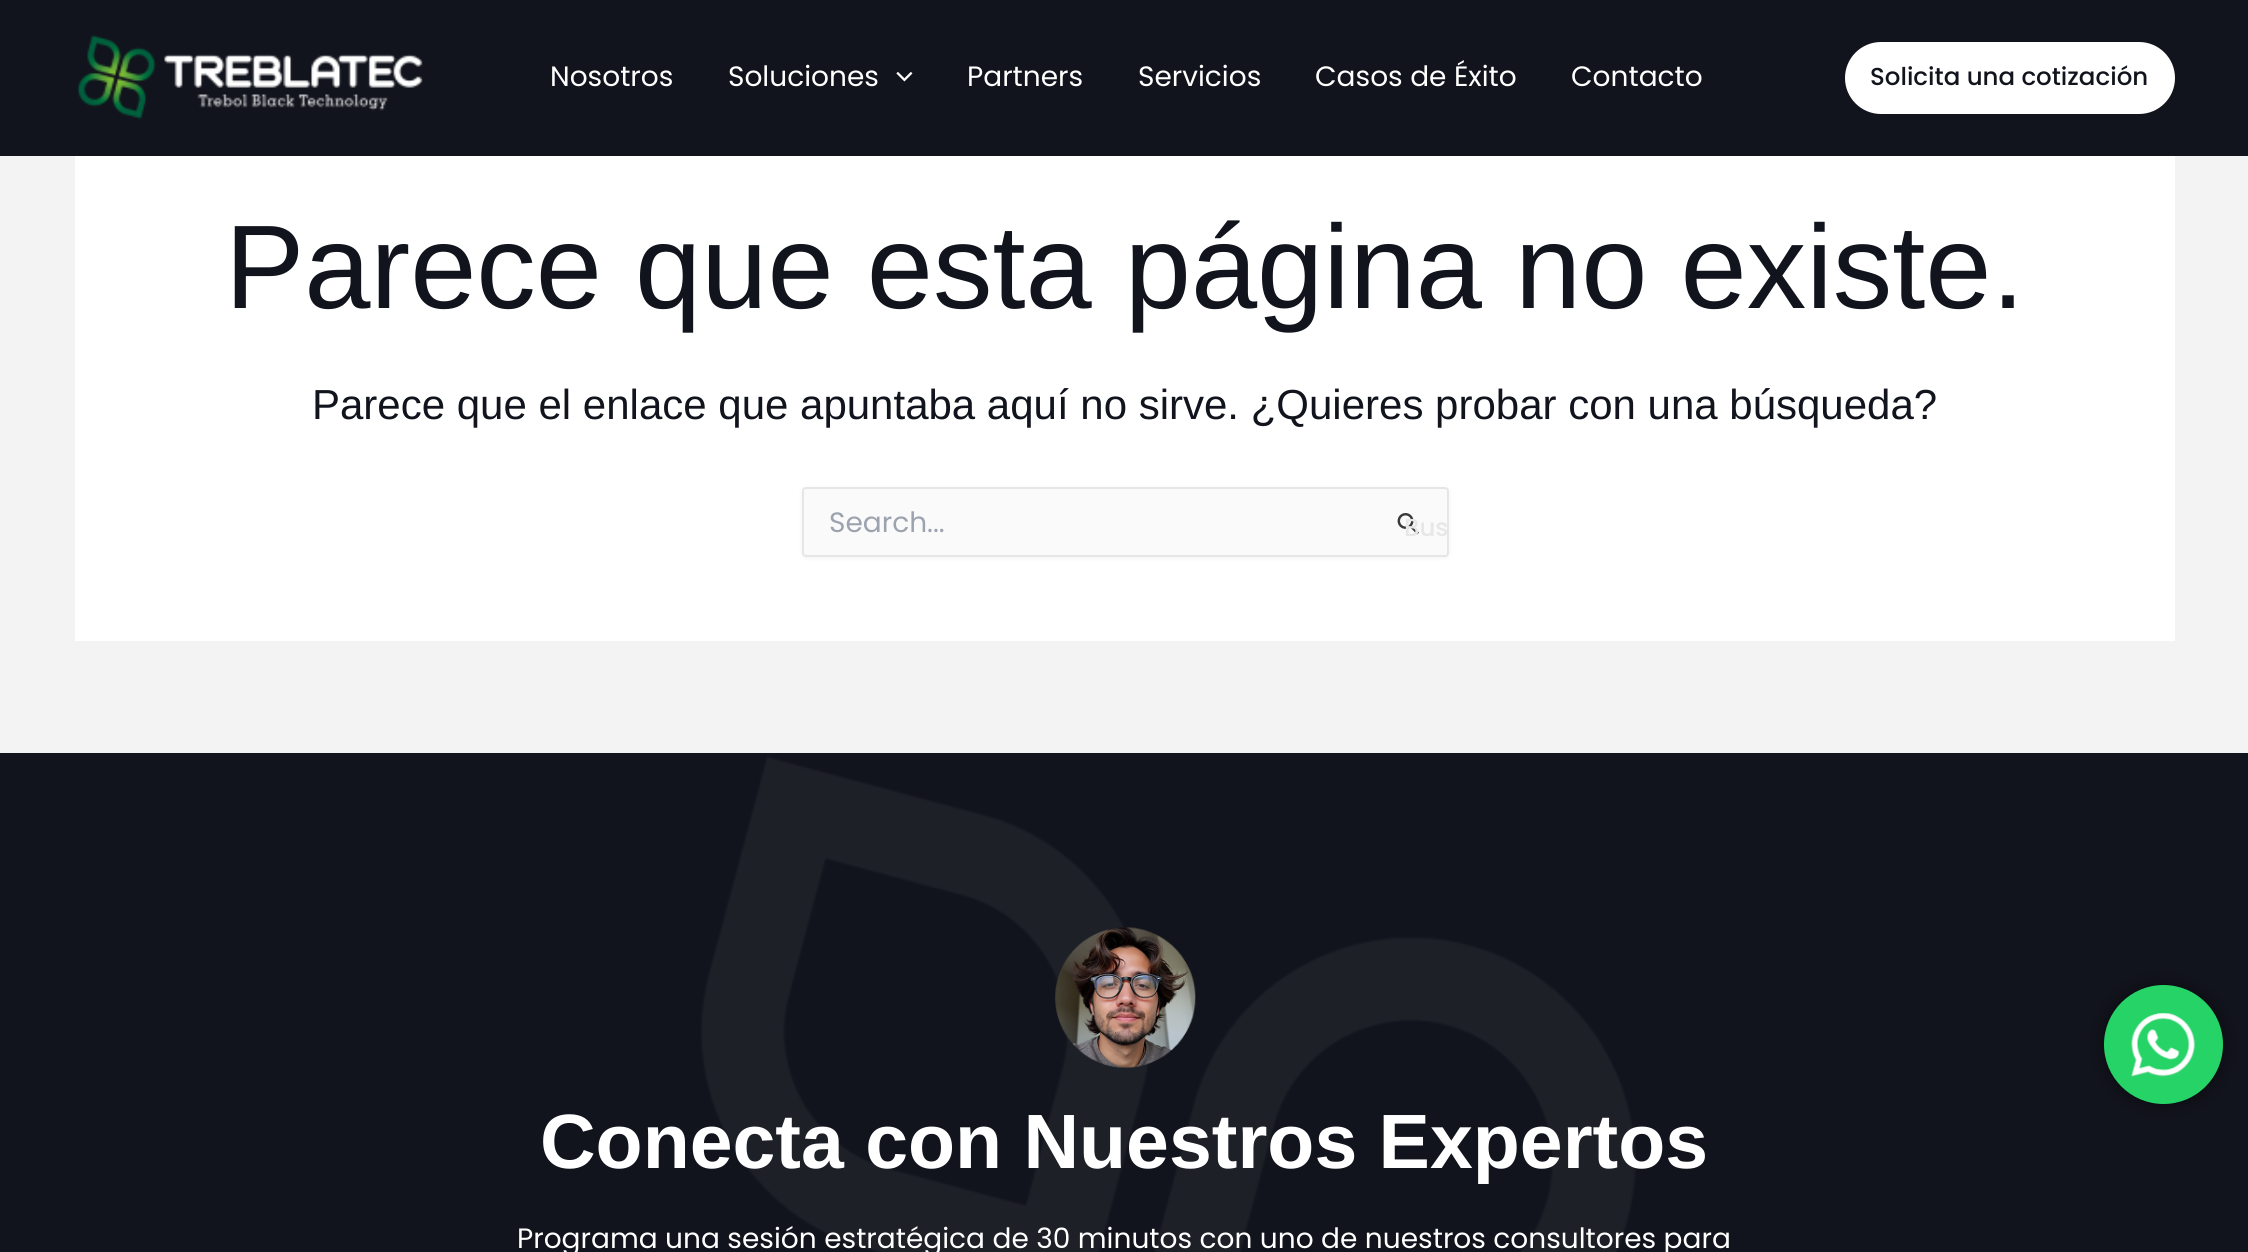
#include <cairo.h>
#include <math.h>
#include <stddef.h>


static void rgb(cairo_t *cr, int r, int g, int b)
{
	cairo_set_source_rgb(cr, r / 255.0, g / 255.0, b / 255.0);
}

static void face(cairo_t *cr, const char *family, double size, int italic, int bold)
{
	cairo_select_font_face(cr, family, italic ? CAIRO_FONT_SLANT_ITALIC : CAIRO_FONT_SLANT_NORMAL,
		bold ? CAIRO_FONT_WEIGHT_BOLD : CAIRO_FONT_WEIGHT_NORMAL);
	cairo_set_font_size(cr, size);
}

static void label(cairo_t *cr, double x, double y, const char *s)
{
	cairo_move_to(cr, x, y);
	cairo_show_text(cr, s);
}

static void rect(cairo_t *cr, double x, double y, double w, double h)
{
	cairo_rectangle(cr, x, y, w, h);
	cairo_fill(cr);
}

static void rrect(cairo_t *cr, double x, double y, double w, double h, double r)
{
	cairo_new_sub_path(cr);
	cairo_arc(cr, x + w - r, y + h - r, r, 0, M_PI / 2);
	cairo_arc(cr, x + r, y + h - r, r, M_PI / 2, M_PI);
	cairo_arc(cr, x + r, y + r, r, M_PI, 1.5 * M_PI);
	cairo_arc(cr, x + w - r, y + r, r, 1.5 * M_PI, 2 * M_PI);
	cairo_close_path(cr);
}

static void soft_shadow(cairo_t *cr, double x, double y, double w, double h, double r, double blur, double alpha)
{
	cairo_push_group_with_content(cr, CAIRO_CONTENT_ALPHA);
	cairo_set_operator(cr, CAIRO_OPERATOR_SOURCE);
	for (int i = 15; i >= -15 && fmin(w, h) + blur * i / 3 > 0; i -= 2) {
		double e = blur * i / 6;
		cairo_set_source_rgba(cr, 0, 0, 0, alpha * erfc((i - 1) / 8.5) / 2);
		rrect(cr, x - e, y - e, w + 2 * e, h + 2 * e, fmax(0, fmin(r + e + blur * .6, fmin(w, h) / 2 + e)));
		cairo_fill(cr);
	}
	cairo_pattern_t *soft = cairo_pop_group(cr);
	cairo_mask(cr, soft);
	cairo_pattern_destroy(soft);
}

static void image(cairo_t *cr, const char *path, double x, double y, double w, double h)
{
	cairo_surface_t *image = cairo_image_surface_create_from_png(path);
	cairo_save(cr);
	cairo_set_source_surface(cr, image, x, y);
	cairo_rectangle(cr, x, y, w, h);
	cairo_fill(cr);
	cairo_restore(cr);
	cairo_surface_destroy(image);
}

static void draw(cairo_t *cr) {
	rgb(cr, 243, 243, 243);
	cairo_paint(cr);
	rgb(cr, 18, 20, 29);
	rect(cr, 0, 0, 2248, 156);
	image(cr, "image0.png", 77, 35, 346, 85);
	face(cr, "Poppins", 28, 0, 0);
	rgb(cr, 255, 255, 255);
	label(cr, 550, 86, "Nosotros");
	label(cr, 728, 86, "Soluciones");
	image(cr, "image1.png", 896, 71, 17, 11);
	label(cr, 967, 86, "Partners");
	label(cr, 1138, 86, "Servicios");
	label(cr, 1315, 86, "Casos de Éxito");
	label(cr, 1571, 86, "Contacto");
	rrect(cr, 1845, 42, 330, 72, 36);
	cairo_fill(cr);
	face(cr, "Poppins Medium", 24.5, 0, 0);
	rgb(cr, 18, 20, 29);
	label(cr, 1870, 85, "Solicita una cotización");
	rgb(cr, 255, 255, 255);
	rect(cr, 75, 156, 2100, 485);
	face(cr, "Liberation Sans", 119, 0, 0);
	rgb(cr, 18, 20, 29);
	label(cr, 225, 308, "Parece que esta página no existe.");
	face(cr, "Liberation Sans", 42, 0, 0);
	label(cr, 312, 419, "Parece que el enlace que apuntaba aquí no sirve. ¿Quieres probar con una búsqueda?");
	rgb(cr, 0, 0, 0);
	soft_shadow(cr, 802, 488, 647, 70, 4, 2, 0.05);
	rgb(cr, 250, 250, 250);
	rrect(cr, 803, 488, 645, 68, 3);
	cairo_fill_preserve(cr);
	rgb(cr, 230, 230, 230);
	cairo_stroke(cr);
	face(cr, "Poppins", 28, 0, 0);
	rgb(cr, 156, 163, 175);
	label(cr, 829, 532, "Search...");
	image(cr, "image2.png", 1397, 513, 22, 22);
	face(cr, "Poppins Medium", 24.5, 0, 0);
	rgb(cr, 231, 231, 231);
	label(cr, 1404, 536, "Bus");
	rgb(cr, 18, 20, 29);
	rect(cr, 0, 753, 2248, 499);
	image(cr, "image3.png", 699, 755, 937, 497);
	image(cr, "image4.png", 1055, 927, 141, 141);
	face(cr, "Liberation Sans", 77, 0, 1);
	rgb(cr, 255, 255, 255);
	label(cr, 540, 1168, "Conecta con Nuestros Expertos");
	face(cr, "Poppins", 28, 0, 0);
	label(cr, 517, 1248, "Programa una sesión estratégica de 30 minutos con uno de nuestros consultores para");
	rgb(cr, 0, 0, 0);
	soft_shadow(cr, 2104, 985, 119, 119, 59.5, 9.5, 0.5);
	rgb(cr, 37, 211, 102);
	cairo_arc(cr, 2163.5, 1044.5, 59.5, 0, 2 * M_PI);
	cairo_fill(cr);
	image(cr, "image5.png", 2131, 1013, 64, 64);
}

int main(void) {
	cairo_surface_t *surface = cairo_image_surface_create(CAIRO_FORMAT_RGB24, 2248, 1252);
	cairo_t *cr = cairo_create(surface);
	cairo_font_options_t *options = cairo_font_options_create();
	cairo_font_options_set_hint_metrics(options, CAIRO_HINT_METRICS_OFF);
	cairo_font_options_set_hint_style(options, CAIRO_HINT_STYLE_NONE);
	cairo_set_font_options(cr, options);
	cairo_set_miter_limit(cr, 4);
	draw(cr);
	cairo_surface_write_to_png(surface, "render.png");
	cairo_font_options_destroy(options);
	cairo_destroy(cr);
	cairo_surface_destroy(surface);
	return 0;
}
